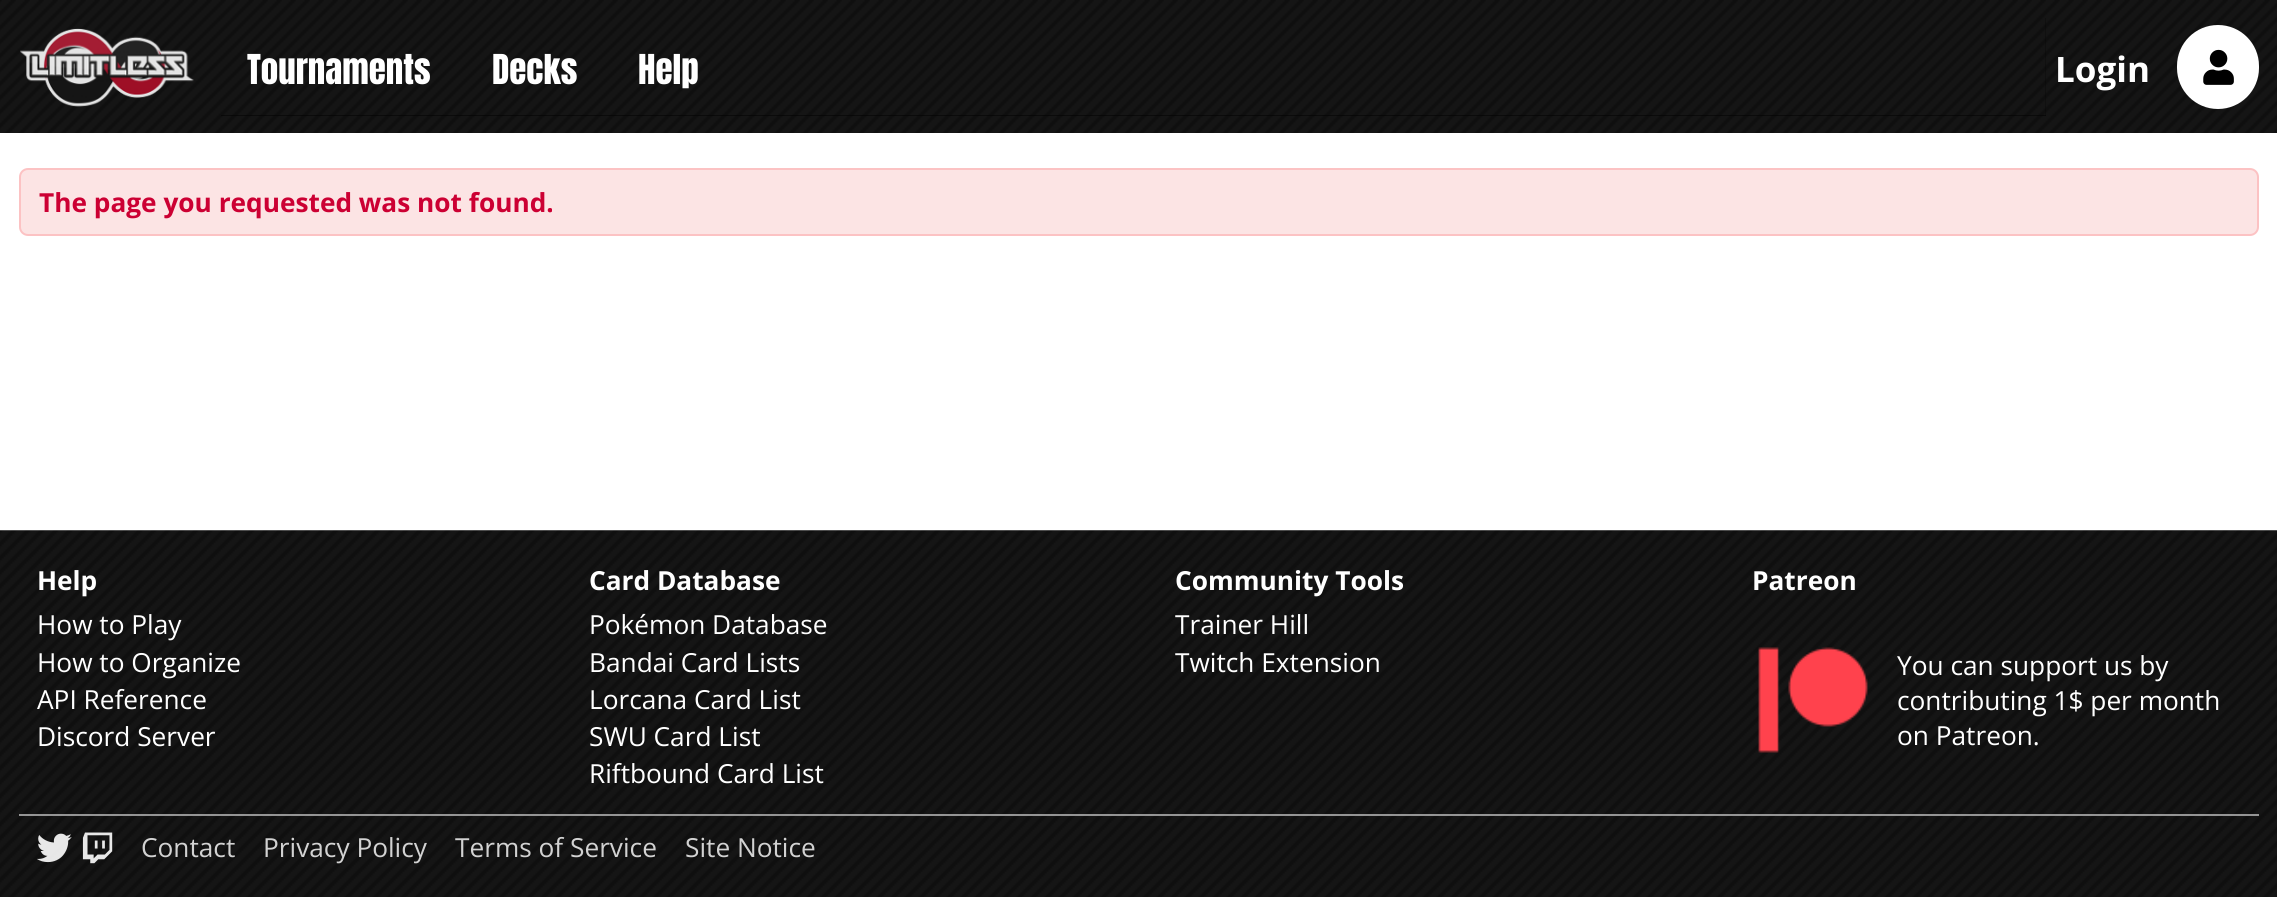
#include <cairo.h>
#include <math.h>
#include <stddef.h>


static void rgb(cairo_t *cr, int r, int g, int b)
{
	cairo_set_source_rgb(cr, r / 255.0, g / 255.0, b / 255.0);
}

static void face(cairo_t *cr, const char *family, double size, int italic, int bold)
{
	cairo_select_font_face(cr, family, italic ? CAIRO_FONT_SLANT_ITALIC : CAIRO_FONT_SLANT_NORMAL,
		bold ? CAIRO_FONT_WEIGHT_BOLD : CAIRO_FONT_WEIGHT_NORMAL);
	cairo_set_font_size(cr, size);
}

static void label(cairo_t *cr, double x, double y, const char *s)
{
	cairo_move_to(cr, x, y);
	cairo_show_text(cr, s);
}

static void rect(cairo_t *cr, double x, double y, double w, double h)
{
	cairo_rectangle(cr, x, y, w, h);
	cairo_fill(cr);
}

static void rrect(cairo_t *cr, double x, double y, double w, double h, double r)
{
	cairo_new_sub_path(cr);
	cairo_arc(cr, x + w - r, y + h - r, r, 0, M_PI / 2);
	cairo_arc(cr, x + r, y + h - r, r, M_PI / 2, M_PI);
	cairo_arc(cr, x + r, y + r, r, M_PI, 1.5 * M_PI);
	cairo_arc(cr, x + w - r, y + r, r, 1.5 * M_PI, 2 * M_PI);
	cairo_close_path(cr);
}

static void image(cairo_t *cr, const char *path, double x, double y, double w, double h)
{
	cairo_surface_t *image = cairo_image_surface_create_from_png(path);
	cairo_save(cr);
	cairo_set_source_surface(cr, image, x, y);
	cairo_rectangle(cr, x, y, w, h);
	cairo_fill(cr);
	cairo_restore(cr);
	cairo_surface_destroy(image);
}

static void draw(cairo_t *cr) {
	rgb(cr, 255, 255, 255);
	cairo_paint(cr);
	image(cr, "image0.png", 0, 0, 2277, 133);
	image(cr, "image1.png", 20, 28, 174, 79);
	rgb(cr, 0, 0, 0);
	rect(cr, 221, 18, 1825, 98);
	image(cr, "image2.png", 221, 18, 1825, 98);
	face(cr, "Anton", 35, 0, 0);
	rgb(cr, 255, 255, 255);
	label(cr, 247, 84, "Tournaments");
	label(cr, 492, 84, "Decks");
	label(cr, 638, 84, "Help");
	face(cr, "Open Sans", 35, 0, 1);
	label(cr, 2055, 82, "Login");
	rrect(cr, 2177, 25, 82, 84, 41);
	cairo_fill(cr);
	image(cr, "image3.png", 2203, 49, 31, 36);
	rgb(cr, 252, 228, 228);
	rrect(cr, 20, 169, 2238, 66, 8);
	cairo_fill_preserve(cr);
	rgb(cr, 252, 194, 195);
	cairo_stroke(cr);
	face(cr, "Open Sans", 26.25, 0, 1);
	rgb(cr, 204, 0, 51);
	label(cr, 39, 212, "The page you requested was not found.");
	image(cr, "image4.png", 0, 530, 2277, 367);
	rgb(cr, 255, 255, 255);
	label(cr, 37, 590, "Help");
	face(cr, "Open Sans", 26.25, 0, 0);
	label(cr, 37, 634, "How to Play");
	label(cr, 37, 672, "How to Organize");
	label(cr, 37, 709, "API Reference");
	label(cr, 37, 746, "Discord Server");
	face(cr, "Open Sans", 26.25, 0, 1);
	label(cr, 589, 590, "Card Database");
	face(cr, "Open Sans", 26.25, 0, 0);
	label(cr, 589, 634, "Pokémon Database");
	label(cr, 589, 672, "Bandai Card Lists");
	label(cr, 589, 709, "Lorcana Card List");
	label(cr, 589, 746, "SWU Card List");
	label(cr, 589, 783, "Riftbound Card List");
	face(cr, "Open Sans", 26.25, 0, 1);
	label(cr, 1175, 590, "Community Tools");
	face(cr, "Open Sans", 26.25, 0, 0);
	label(cr, 1175, 634, "Trainer Hill");
	label(cr, 1175, 672, "Twitch Extension");
	face(cr, "Open Sans", 26.25, 0, 1);
	label(cr, 1752, 590, "Patreon");
	image(cr, "image5.png", 1758, 647, 110, 106);
	face(cr, "Open Sans", 26.25, 0, 0);
	label(cr, 1897, 675, "You can support us by");
	label(cr, 1897, 710, "contributing 1$ per month");
	label(cr, 1897, 745, "on Patreon.");
	cairo_set_source_rgba(cr, 0.827, 0.827, 0.827, 0.68);
	rect(cr, 19, 814, 2240, 2);
	image(cr, "image6.png", 37, 833, 35, 30);
	image(cr, "image7.png", 82, 832, 31, 32);
	rgb(cr, 210, 210, 210);
	label(cr, 141, 857, "Contact");
	label(cr, 263, 857, "Privacy Policy");
	label(cr, 455, 857, "Terms of Service");
	label(cr, 685, 857, "Site Notice");
}

int main(void) {
	cairo_surface_t *surface = cairo_image_surface_create(CAIRO_FORMAT_RGB24, 2277, 897);
	cairo_t *cr = cairo_create(surface);
	cairo_font_options_t *options = cairo_font_options_create();
	cairo_font_options_set_hint_metrics(options, CAIRO_HINT_METRICS_OFF);
	cairo_font_options_set_hint_style(options, CAIRO_HINT_STYLE_NONE);
	cairo_set_font_options(cr, options);
	cairo_set_miter_limit(cr, 4);
	draw(cr);
	cairo_surface_write_to_png(surface, "render.png");
	cairo_font_options_destroy(options);
	cairo_destroy(cr);
	cairo_surface_destroy(surface);
	return 0;
}
